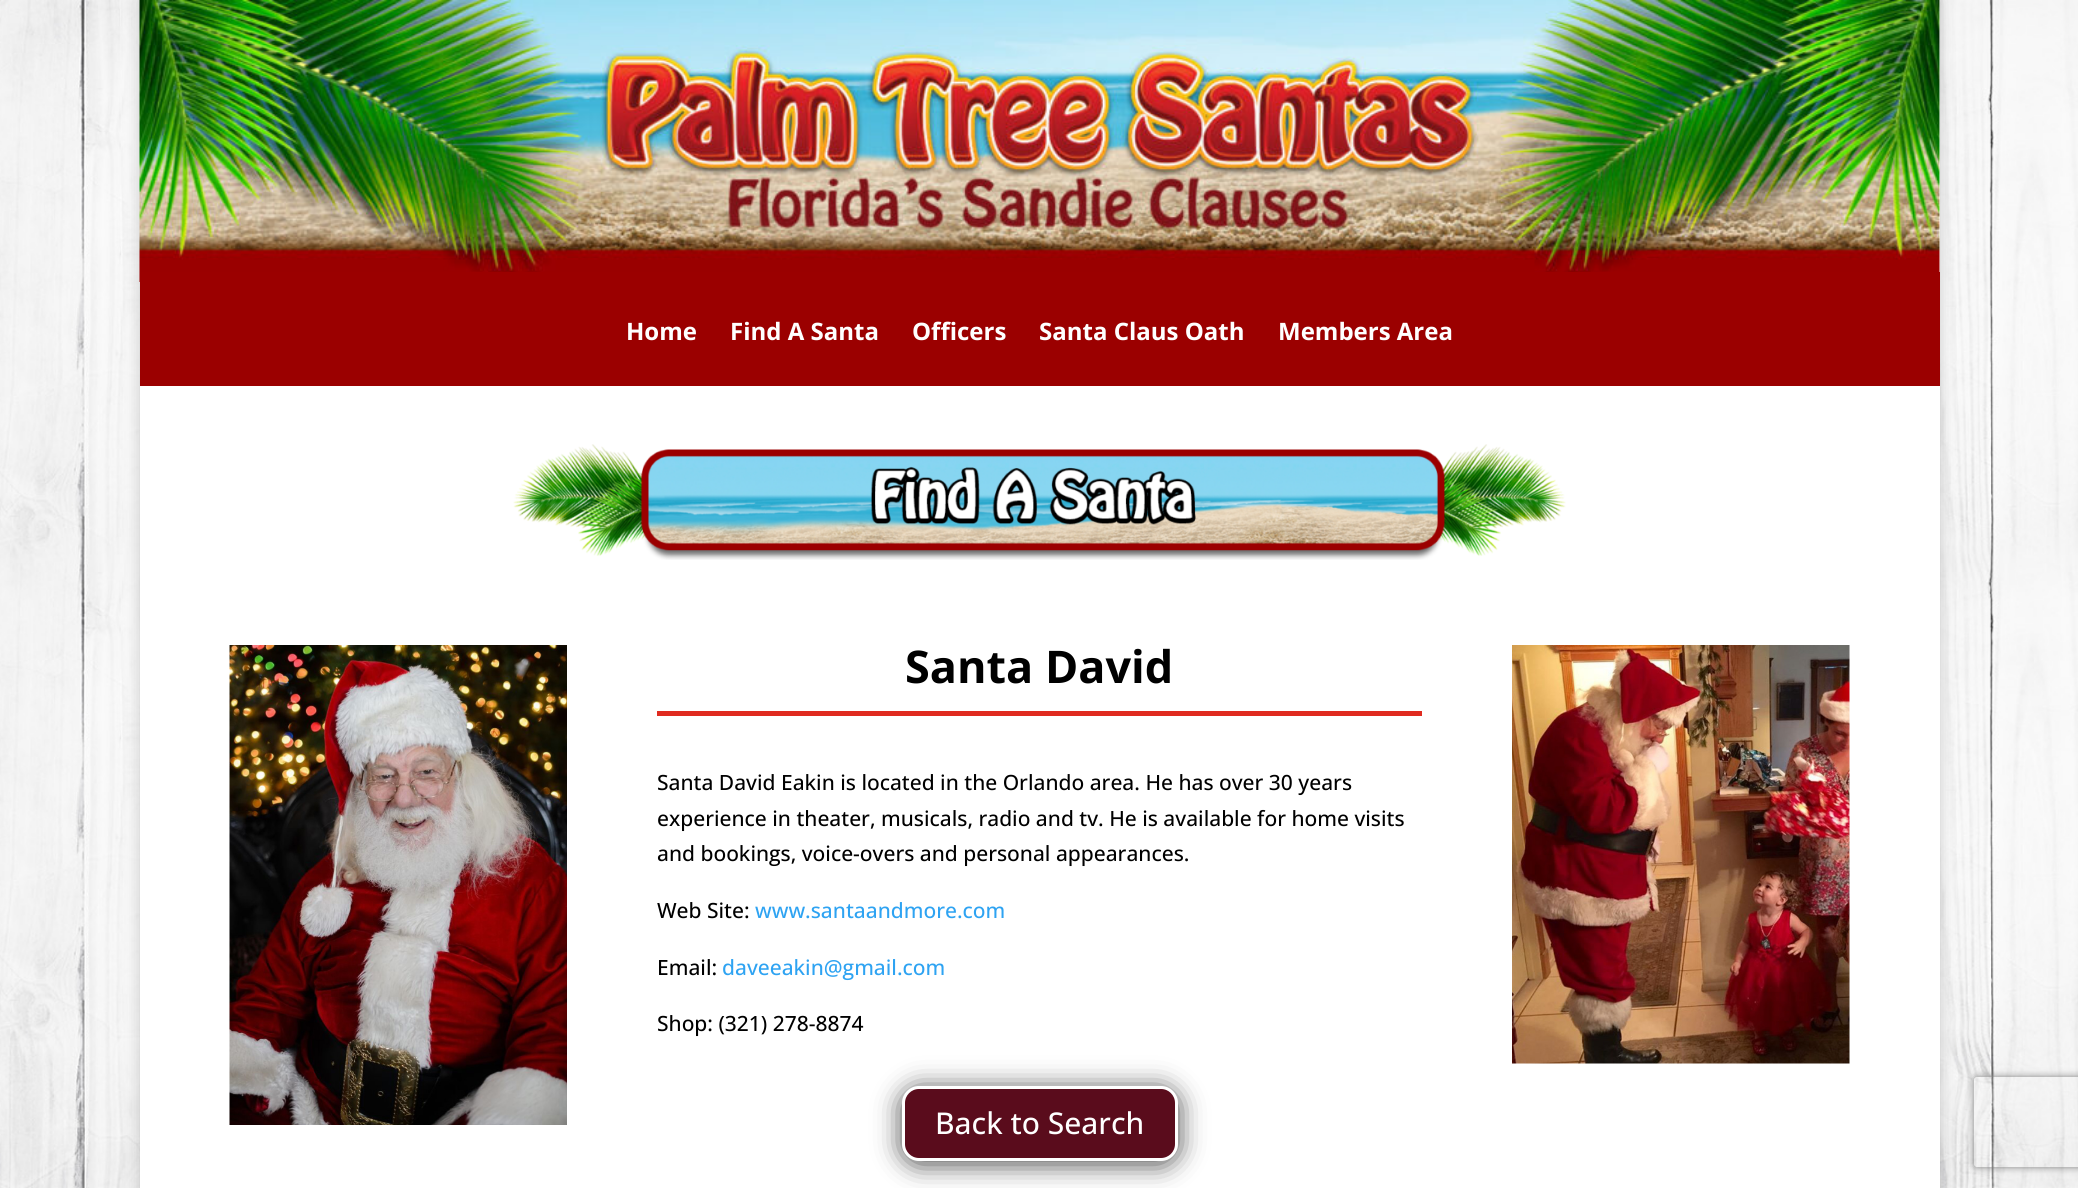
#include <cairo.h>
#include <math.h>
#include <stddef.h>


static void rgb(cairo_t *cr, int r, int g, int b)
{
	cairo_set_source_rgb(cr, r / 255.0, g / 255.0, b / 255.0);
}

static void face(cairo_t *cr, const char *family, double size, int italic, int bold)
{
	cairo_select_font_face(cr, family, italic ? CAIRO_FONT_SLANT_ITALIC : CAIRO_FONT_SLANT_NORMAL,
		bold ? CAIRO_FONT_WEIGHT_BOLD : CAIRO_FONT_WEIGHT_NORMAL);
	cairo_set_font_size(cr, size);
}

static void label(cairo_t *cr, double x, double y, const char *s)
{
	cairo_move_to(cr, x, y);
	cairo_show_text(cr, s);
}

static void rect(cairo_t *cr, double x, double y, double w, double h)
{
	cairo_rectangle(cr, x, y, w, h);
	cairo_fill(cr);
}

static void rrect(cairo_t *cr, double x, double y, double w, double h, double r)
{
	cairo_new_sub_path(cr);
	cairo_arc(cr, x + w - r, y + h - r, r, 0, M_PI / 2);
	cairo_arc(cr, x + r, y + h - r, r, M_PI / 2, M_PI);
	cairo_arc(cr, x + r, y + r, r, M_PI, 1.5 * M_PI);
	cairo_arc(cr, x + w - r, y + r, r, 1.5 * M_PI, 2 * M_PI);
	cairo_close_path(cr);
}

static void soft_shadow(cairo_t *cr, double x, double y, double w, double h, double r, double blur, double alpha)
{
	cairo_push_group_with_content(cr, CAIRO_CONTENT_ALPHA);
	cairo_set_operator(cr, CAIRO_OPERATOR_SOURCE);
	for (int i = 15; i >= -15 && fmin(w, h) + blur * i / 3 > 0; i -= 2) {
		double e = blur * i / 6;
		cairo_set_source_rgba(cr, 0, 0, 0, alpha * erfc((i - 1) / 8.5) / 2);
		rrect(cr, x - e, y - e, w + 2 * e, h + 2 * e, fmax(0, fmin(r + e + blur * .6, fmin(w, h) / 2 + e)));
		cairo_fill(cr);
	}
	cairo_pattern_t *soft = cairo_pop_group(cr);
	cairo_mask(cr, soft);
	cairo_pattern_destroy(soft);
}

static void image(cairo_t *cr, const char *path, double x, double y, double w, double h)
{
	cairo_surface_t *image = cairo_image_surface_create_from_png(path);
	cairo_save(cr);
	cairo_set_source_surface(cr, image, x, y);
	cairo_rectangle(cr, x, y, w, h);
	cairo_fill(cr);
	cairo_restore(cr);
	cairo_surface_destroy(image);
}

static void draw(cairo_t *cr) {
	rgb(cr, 255, 255, 255);
	cairo_paint(cr);
	image(cr, "image0.png", 0, 0, 2078, 1188);
	rgb(cr, 0, 0, 0);
	soft_shadow(cr, 140, 0, 1800, 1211, 0, 7.5, 0.2);
	rgb(cr, 255, 255, 255);
	rect(cr, 1939, 0, 1, 272);
	image(cr, "image1.png", 139, 0, 1801, 282);
	rgb(cr, 155, 0, 0);
	rect(cr, 140, 272, 1800, 114);
	face(cr, "Open Sans", 24, 0, 1);
	rgb(cr, 255, 255, 255);
	label(cr, 626, 340, "Home");
	label(cr, 730, 340, "Find A Santa");
	label(cr, 912, 340, "Officers");
	label(cr, 1039, 340, "Santa Claus Oath");
	label(cr, 1278, 340, "Members Area");
	rect(cr, 140, 386, 1800, 802);
	image(cr, "image2.png", 513, 444, 1053, 116);
	image(cr, "image3.png", 229, 645, 338, 480);
	face(cr, "Open Sans", 45, 0, 1);
	rgb(cr, 0, 0, 0);
	label(cr, 905, 683, "Santa David");
	rgb(cr, 224, 43, 32);
	rect(cr, 657, 711, 765, 5);
	face(cr, "Open Sans Medium", 21, 0, 0);
	rgb(cr, 0, 0, 0);
	label(cr, 657, 790, "Santa David Eakin is located in the Orlando area. He has over 30 years");
	label(cr, 657, 826, "experience in theater, musicals, radio and tv. He is available for home visits");
	label(cr, 657, 861, "and bookings, voice-overs and personal appearances.");
	label(cr, 657, 918, "Web Site:");
	rgb(cr, 46, 163, 242);
	label(cr, 755, 918, "www.santaandmore.com");
	rgb(cr, 0, 0, 0);
	label(cr, 657, 975, "Email:");
	rgb(cr, 46, 163, 242);
	label(cr, 722, 975, "daveeakin@gmail.com");
	rgb(cr, 0, 0, 0);
	label(cr, 657, 1031, "Shop: (321) 278-8874");
	rgb(cr, 0, 0, 0);
	soft_shadow(cr, 902, 1089, 276, 75, 17, 13.5, 0.73);
	rgb(cr, 90, 12, 28);
	rrect(cr, 903.5, 1087.5, 273, 72, 15.5);
	cairo_fill_preserve(cr);
	rgb(cr, 255, 255, 255);
	cairo_set_line_width(cr, 3);
	cairo_stroke(cr);
	face(cr, "Open Sans Medium", 30, 0, 0);
	label(cr, 935, 1134, "Back to Search");
	image(cr, "image4.png", 1512, 645, 338, 419);
	cairo_save(cr);
	cairo_set_fill_rule(cr, CAIRO_FILL_RULE_EVEN_ODD);
	cairo_new_path(cr);
	cairo_move_to(cr, 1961, 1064);
	cairo_line_to(cr, 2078, 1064);
	cairo_line_to(cr, 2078, 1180);
	cairo_line_to(cr, 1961, 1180);
	cairo_close_path(cr);
	cairo_move_to(cr, 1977, 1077);
	cairo_line_to(cr, 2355, 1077);
	cairo_curve_to(cr, 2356.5, 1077, 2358, 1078.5, 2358, 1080);
	cairo_line_to(cr, 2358, 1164);
	cairo_curve_to(cr, 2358, 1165.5, 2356.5, 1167, 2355, 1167);
	cairo_line_to(cr, 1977, 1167);
	cairo_curve_to(cr, 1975.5, 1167, 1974, 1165.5, 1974, 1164);
	cairo_line_to(cr, 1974, 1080);
	cairo_curve_to(cr, 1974, 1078.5, 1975.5, 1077, 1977, 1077);
	cairo_close_path(cr);
	cairo_clip(cr);
	rgb(cr, 128, 128, 128);
	soft_shadow(cr, 1974, 1077, 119, 90, 3, 4, 1);
	cairo_restore(cr);
}

int main(void) {
	cairo_surface_t *surface = cairo_image_surface_create(CAIRO_FORMAT_RGB24, 2078, 1188);
	cairo_t *cr = cairo_create(surface);
	cairo_font_options_t *options = cairo_font_options_create();
	cairo_font_options_set_hint_metrics(options, CAIRO_HINT_METRICS_OFF);
	cairo_font_options_set_hint_style(options, CAIRO_HINT_STYLE_NONE);
	cairo_set_font_options(cr, options);
	cairo_set_miter_limit(cr, 4);
	draw(cr);
	cairo_surface_write_to_png(surface, "render.png");
	cairo_font_options_destroy(options);
	cairo_destroy(cr);
	cairo_surface_destroy(surface);
	return 0;
}
